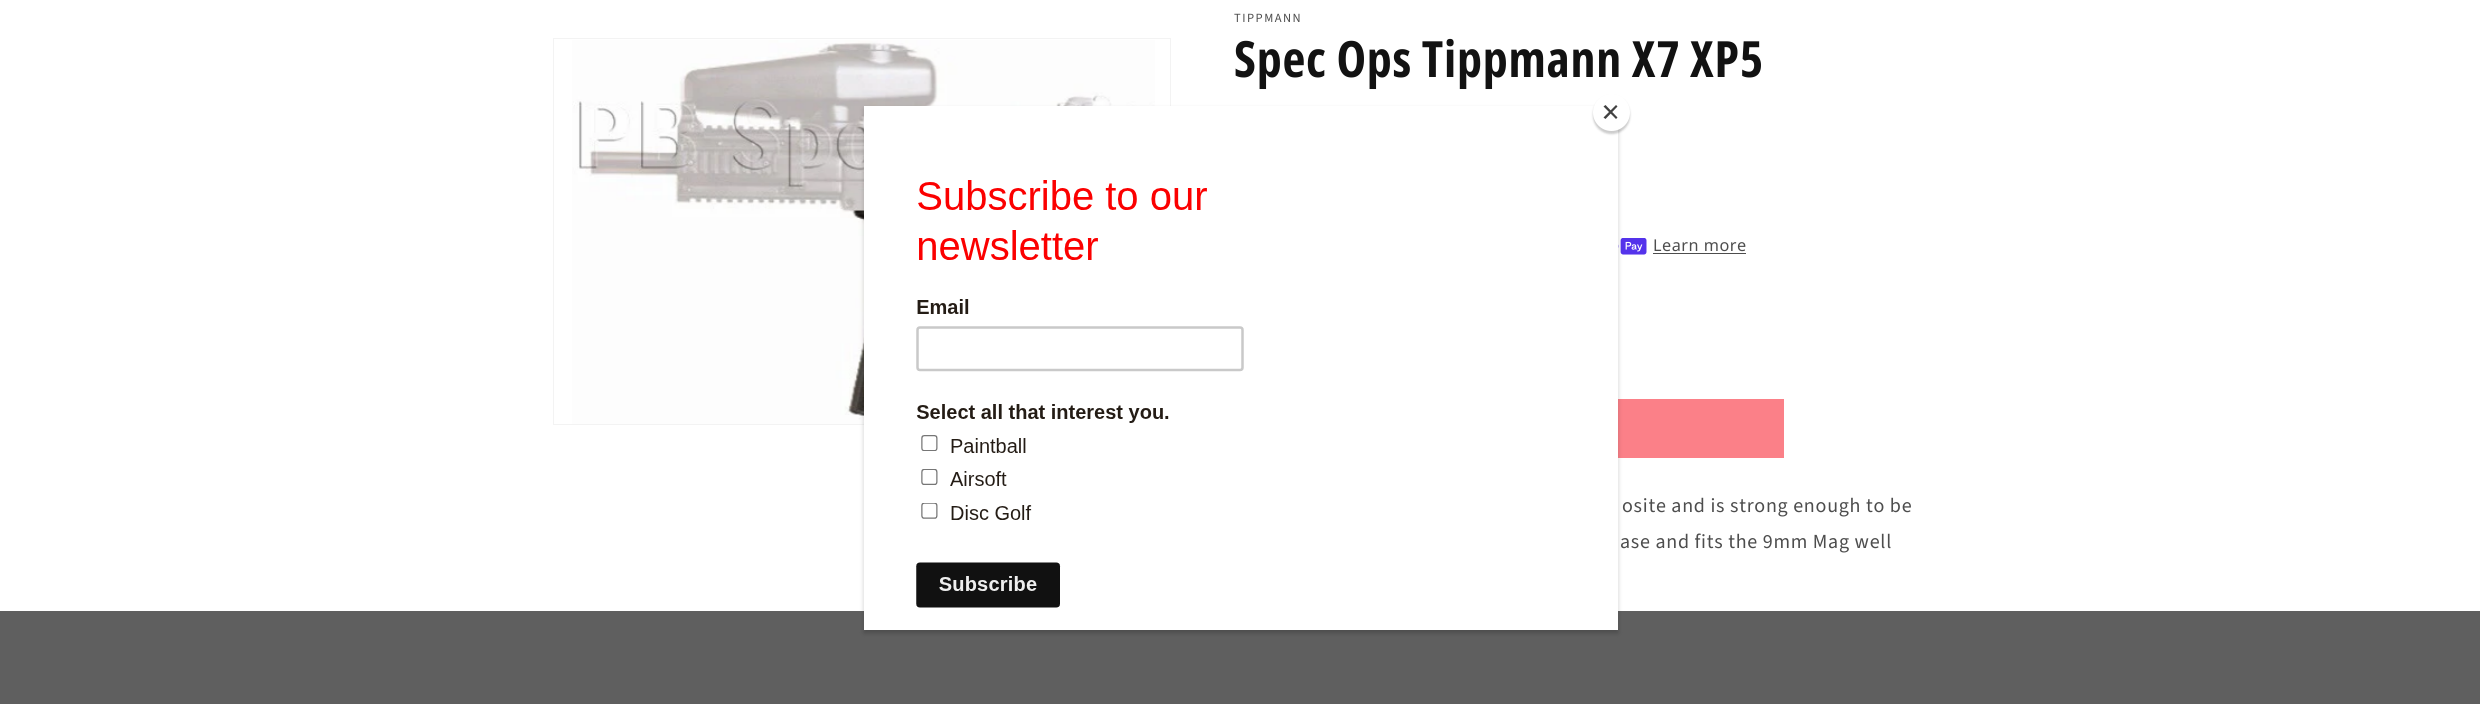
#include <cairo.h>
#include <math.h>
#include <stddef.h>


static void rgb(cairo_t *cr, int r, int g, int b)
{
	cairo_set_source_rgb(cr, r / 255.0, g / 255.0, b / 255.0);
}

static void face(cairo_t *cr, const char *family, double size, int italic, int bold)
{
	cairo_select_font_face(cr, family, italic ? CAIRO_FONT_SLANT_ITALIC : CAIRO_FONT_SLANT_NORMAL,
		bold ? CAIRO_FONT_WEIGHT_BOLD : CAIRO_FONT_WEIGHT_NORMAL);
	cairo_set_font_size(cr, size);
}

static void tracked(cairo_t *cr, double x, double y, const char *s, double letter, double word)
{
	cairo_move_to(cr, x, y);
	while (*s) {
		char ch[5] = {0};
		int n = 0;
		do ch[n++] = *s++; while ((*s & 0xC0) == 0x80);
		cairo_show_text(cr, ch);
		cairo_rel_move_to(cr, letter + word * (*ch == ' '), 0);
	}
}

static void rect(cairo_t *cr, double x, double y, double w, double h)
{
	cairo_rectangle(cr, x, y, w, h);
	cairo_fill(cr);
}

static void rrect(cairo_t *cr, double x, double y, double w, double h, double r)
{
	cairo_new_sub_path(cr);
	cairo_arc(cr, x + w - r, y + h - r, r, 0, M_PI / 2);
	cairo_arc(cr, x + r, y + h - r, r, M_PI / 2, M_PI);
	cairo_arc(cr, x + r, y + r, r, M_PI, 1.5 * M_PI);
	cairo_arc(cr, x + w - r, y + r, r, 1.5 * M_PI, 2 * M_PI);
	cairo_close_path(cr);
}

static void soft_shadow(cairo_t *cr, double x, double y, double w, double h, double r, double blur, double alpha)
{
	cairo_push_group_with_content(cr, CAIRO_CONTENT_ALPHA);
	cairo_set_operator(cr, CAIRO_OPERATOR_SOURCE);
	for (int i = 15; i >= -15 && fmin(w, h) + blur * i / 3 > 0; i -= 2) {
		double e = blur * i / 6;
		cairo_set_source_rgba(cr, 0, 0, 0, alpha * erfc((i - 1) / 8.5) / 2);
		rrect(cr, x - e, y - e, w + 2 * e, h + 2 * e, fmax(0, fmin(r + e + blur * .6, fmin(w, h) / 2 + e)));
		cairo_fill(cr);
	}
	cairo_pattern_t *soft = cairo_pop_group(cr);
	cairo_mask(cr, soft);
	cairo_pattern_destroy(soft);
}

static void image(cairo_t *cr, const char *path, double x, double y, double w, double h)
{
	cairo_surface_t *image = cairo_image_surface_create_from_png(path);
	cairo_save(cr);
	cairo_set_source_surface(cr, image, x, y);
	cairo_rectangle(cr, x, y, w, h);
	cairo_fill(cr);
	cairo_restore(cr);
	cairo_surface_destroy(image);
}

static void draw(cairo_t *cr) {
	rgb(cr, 255, 255, 255);
	cairo_paint(cr);
	cairo_rectangle(cr, 553.5, 38.5, 617, 386);
	rgb(cr, 243, 243, 243);
	cairo_set_line_width(cr, 1);
	cairo_stroke(cr);
	image(cr, "image0.png", 572, 40, 583, 384);
	face(cr, "Source Sans Pro", 12.5, 0, 0);
	rgb(cr, 77, 77, 77);
	tracked(cr, 1234, 22, "TIPPMANN", 1.5, 0);
	face(cr, "Open Sans Condensed", 50, 0, 1);
	rgb(cr, 18, 18, 18);
	tracked(cr, 1234, 77, "Spec Ops Tippmann X7 XP5", 0.75, 0);
	image(cr, "image1.png", 1618, 238, 29, 17);
	face(cr, "Noto Sans", 16.25, 0, 0);
	rgb(cr, 77, 77, 77);
	tracked(cr, 1653, 251, "Learn more", 0.5, 0);
	rect(cr, 1653, 253, 93, 1);
	rgb(cr, 251, 128, 136);
	rect(cr, 1618, 399, 166, 59);
	face(cr, "Source Sans Pro", 20, 0, 0);
	rgb(cr, 77, 77, 77);
	tracked(cr, 1622, 512, "osite and is strong enough to be", 0.75, 0);
	tracked(cr, 1620, 548, "ase and fits the 9mm Mag well", 0.75, 0);
	rgb(cr, 95, 95, 95);
	rect(cr, 0, 611, 2480, 93);
	rgb(cr, 0, 0, 0);
	soft_shadow(cr, 864, 109, 754, 524, 0, 2.5, 0.2);
	image(cr, "image2.png", 864, 106, 754, 524);
	soft_shadow(cr, 1593, 96, 37, 38, 18.5, 1, 0.2);
	rgb(cr, 255, 255, 255);
	cairo_arc(cr, 1611.5, 112.5, 18.5, 0, 2 * M_PI);
	cairo_fill(cr);
	rgb(cr, 65, 65, 65);
	cairo_new_path(cr);
	cairo_move_to(cr, 1616, 105);
	cairo_line_to(cr, 1617.5, 106.5);
	cairo_line_to(cr, 1605.5, 119);
	cairo_line_to(cr, 1603.5, 117.5);
	cairo_close_path(cr);
	cairo_fill(cr);
	cairo_new_path(cr);
	cairo_move_to(cr, 1603.5, 106.5);
	cairo_line_to(cr, 1605.5, 105);
	cairo_line_to(cr, 1617.5, 117.5);
	cairo_line_to(cr, 1616, 119);
	cairo_close_path(cr);
	cairo_fill(cr);
}

int main(void) {
	cairo_surface_t *surface = cairo_image_surface_create(CAIRO_FORMAT_RGB24, 2480, 704);
	cairo_t *cr = cairo_create(surface);
	cairo_font_options_t *options = cairo_font_options_create();
	cairo_font_options_set_hint_metrics(options, CAIRO_HINT_METRICS_OFF);
	cairo_font_options_set_hint_style(options, CAIRO_HINT_STYLE_NONE);
	cairo_set_font_options(cr, options);
	cairo_set_miter_limit(cr, 4);
	draw(cr);
	cairo_surface_write_to_png(surface, "render.png");
	cairo_font_options_destroy(options);
	cairo_destroy(cr);
	cairo_surface_destroy(surface);
	return 0;
}
